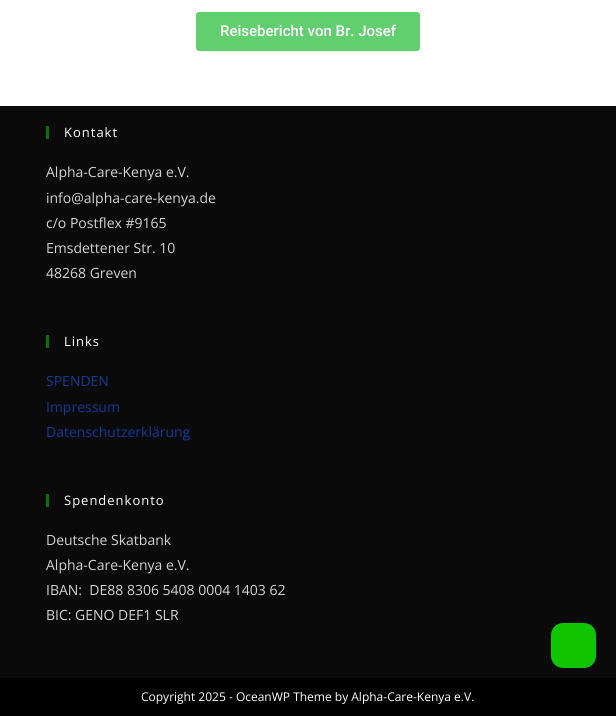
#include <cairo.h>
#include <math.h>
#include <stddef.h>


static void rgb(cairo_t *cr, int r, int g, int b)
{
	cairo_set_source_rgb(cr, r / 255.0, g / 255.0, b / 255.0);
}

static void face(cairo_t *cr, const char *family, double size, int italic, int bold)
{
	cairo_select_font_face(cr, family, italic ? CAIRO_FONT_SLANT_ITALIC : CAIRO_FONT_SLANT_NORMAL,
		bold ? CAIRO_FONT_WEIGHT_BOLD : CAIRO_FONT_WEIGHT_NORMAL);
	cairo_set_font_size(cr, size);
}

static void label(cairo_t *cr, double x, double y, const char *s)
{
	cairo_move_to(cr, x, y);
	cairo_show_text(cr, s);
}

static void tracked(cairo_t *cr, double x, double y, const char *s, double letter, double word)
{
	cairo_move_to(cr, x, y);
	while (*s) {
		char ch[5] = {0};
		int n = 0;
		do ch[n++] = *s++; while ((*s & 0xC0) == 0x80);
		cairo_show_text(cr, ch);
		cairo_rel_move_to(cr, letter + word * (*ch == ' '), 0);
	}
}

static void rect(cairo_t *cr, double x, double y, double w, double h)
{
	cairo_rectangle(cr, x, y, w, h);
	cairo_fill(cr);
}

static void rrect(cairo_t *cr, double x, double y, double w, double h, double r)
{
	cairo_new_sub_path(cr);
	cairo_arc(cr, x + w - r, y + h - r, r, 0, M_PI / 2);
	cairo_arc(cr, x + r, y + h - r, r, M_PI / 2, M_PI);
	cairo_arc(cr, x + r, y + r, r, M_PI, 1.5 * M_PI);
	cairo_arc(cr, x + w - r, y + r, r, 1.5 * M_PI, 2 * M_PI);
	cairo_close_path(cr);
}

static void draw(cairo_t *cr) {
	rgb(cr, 255, 255, 255);
	cairo_paint(cr);
	rgb(cr, 97, 206, 112);
	rrect(cr, 196, 12, 224, 39, 3);
	cairo_fill(cr);
	face(cr, "Roboto Medium", 15, 0, 0);
	rgb(cr, 255, 255, 255);
	label(cr, 220, 36, "Reisebericht von Br. Josef");
	rgb(cr, 10, 10, 10);
	rect(cr, 0, 106, 616, 572);
	rgb(cr, 0, 117, 1);
	rect(cr, 46, 126, 3, 13);
	face(cr, "Open Sans", 13, 0, 0);
	rgb(cr, 255, 255, 255);
	tracked(cr, 64, 137, "Kontakt", 1, 0);
	face(cr, "Open Sans", 14, 0, 0);
	rgb(cr, 211, 211, 211);
	label(cr, 46, 177, "Alpha-Care-Kenya e.V.");
	label(cr, 46, 203, "info@alpha-care-kenya.de");
	label(cr, 46, 228, "c/o Postflex #9165");
	label(cr, 46, 253, "Emsdettener Str. 10");
	label(cr, 46, 278, "48268 Greven");
	rgb(cr, 0, 117, 1);
	rect(cr, 46, 335, 3, 13);
	face(cr, "Open Sans", 13, 0, 0);
	rgb(cr, 255, 255, 255);
	tracked(cr, 64, 346, "Links", 1, 0);
	face(cr, "Open Sans", 14, 0, 0);
	rgb(cr, 20, 57, 145);
	label(cr, 46, 386, "SPENDEN");
	label(cr, 46, 412, "Impressum");
	label(cr, 46, 437, "Datenschutzerklärung");
	rgb(cr, 0, 117, 1);
	rect(cr, 46, 494, 3, 13);
	face(cr, "Open Sans", 13, 0, 0);
	rgb(cr, 255, 255, 255);
	tracked(cr, 64, 505, "Spendenkonto", 1, 0);
	face(cr, "Open Sans", 14, 0, 0);
	rgb(cr, 211, 211, 211);
	label(cr, 46, 545, "Deutsche Skatbank");
	label(cr, 46, 570, "Alpha-Care-Kenya e.V.");
	label(cr, 46, 595, "IBAN:  DE88 8306 5408 0004 1403 62");
	label(cr, 46, 620, "BIC: GENO DEF1 SLR");
	rgb(cr, 0, 0, 0);
	rect(cr, 0, 678, 616, 38);
	face(cr, "Open Sans", 12, 0, 0);
	rgb(cr, 255, 255, 255);
	label(cr, 141, 701, "Copyright 2025 - OceanWP Theme by Alpha-Care-Kenya e.V.");
	rgb(cr, 16, 196, 0);
	rrect(cr, 551, 623, 45, 45, 12);
	cairo_fill(cr);
}

int main(void) {
	cairo_surface_t *surface = cairo_image_surface_create(CAIRO_FORMAT_RGB24, 616, 716);
	cairo_t *cr = cairo_create(surface);
	cairo_font_options_t *options = cairo_font_options_create();
	cairo_font_options_set_hint_metrics(options, CAIRO_HINT_METRICS_OFF);
	cairo_font_options_set_hint_style(options, CAIRO_HINT_STYLE_NONE);
	cairo_set_font_options(cr, options);
	cairo_set_miter_limit(cr, 4);
	draw(cr);
	cairo_surface_write_to_png(surface, "render.png");
	cairo_font_options_destroy(options);
	cairo_destroy(cr);
	cairo_surface_destroy(surface);
	return 0;
}
